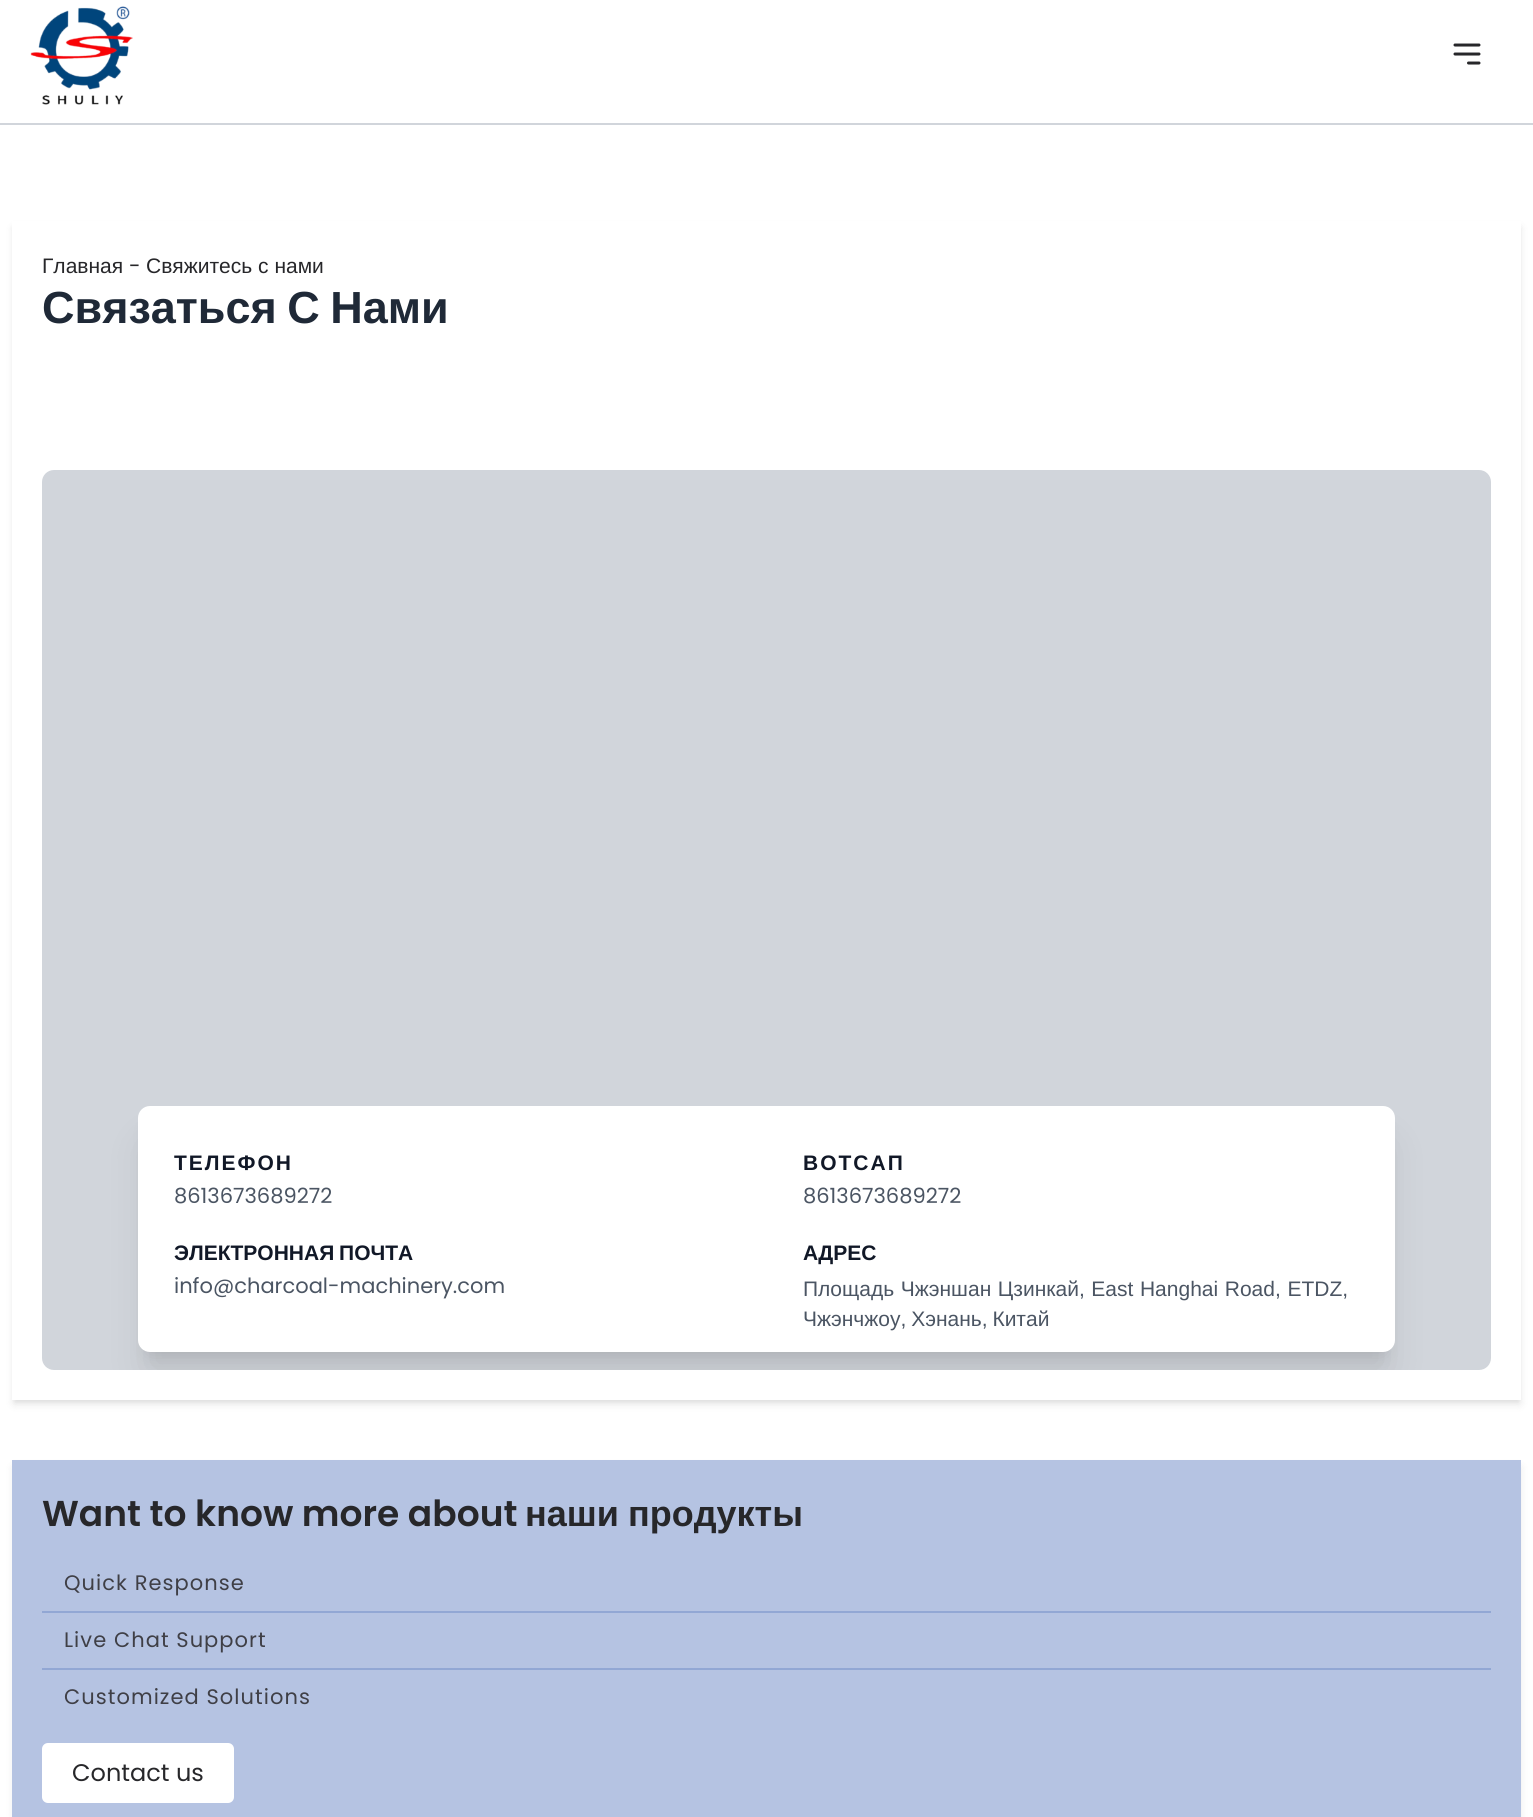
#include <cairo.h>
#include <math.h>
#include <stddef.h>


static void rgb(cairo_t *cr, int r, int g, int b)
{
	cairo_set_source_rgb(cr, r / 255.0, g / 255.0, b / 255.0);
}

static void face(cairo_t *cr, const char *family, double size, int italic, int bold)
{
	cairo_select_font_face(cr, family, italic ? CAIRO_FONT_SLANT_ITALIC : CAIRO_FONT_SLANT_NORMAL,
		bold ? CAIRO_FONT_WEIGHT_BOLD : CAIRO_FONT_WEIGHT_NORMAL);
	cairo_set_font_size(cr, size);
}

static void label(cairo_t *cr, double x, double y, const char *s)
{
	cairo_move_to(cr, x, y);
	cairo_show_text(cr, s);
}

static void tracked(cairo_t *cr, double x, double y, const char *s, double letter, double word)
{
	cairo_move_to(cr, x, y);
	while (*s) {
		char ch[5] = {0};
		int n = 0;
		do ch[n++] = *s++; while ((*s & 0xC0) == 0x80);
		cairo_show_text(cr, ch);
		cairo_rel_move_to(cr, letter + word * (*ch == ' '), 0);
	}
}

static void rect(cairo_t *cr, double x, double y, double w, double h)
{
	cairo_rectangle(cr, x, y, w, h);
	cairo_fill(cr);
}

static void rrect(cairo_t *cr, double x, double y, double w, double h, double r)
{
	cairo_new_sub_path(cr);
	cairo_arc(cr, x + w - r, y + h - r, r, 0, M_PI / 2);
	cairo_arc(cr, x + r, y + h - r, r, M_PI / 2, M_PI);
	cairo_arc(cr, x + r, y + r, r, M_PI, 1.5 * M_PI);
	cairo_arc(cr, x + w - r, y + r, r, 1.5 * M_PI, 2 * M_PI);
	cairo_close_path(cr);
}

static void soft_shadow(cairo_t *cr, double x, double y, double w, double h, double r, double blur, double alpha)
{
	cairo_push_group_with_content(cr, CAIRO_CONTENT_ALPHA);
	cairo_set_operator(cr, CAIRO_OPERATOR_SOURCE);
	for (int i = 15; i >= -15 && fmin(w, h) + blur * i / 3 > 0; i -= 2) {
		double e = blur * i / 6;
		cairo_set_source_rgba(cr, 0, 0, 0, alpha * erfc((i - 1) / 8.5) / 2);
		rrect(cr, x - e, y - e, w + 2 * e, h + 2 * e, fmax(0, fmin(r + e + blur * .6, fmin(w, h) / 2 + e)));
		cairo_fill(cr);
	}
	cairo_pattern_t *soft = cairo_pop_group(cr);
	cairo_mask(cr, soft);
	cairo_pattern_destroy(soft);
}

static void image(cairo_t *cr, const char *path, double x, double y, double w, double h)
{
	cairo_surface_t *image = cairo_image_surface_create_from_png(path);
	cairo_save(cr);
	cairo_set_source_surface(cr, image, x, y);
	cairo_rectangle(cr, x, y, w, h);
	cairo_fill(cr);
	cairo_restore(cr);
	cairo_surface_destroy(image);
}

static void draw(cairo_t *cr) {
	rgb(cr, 255, 255, 255);
	cairo_paint(cr);
	rgb(cr, 209, 213, 219);
	rect(cr, 0, 123, 1533, 2);
	image(cr, "image0.png", 30, 6, 103, 99);
	cairo_new_path(cr);
	cairo_move_to(cr, 1455, 45);
	cairo_line_to(cr, 1479, 45);
	cairo_move_to(cr, 1455, 54);
	cairo_line_to(cr, 1479, 54);
	cairo_move_to(cr, 1468.5, 63);
	cairo_line_to(cr, 1479, 63);
	rgb(cr, 39, 39, 42);
	cairo_set_line_width(cr, 3);
	cairo_set_line_cap(cr, CAIRO_LINE_CAP_ROUND);
	cairo_set_line_join(cr, CAIRO_LINE_JOIN_ROUND);
	cairo_stroke(cr);
	cairo_save(cr);
	cairo_set_fill_rule(cr, CAIRO_FILL_RULE_EVEN_ODD);
	cairo_new_path(cr);
	cairo_move_to(cr, 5, 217);
	cairo_line_to(cr, 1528, 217);
	cairo_line_to(cr, 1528, 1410);
	cairo_line_to(cr, 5, 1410);
	cairo_close_path(cr);
	cairo_move_to(cr, 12, 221);
	cairo_line_to(cr, 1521, 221);
	cairo_line_to(cr, 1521, 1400);
	cairo_line_to(cr, 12, 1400);
	cairo_close_path(cr);
	cairo_clip(cr);
	rgb(cr, 0, 0, 0);
	soft_shadow(cr, 15, 227, 1503, 1173, 0, 3, 0.1);
	cairo_restore(cr);
	cairo_save(cr);
	cairo_set_fill_rule(cr, CAIRO_FILL_RULE_EVEN_ODD);
	cairo_new_path(cr);
	cairo_move_to(cr, 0, 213);
	cairo_line_to(cr, 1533, 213);
	cairo_line_to(cr, 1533, 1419);
	cairo_line_to(cr, 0, 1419);
	cairo_close_path(cr);
	cairo_move_to(cr, 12, 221);
	cairo_line_to(cr, 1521, 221);
	cairo_line_to(cr, 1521, 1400);
	cairo_line_to(cr, 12, 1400);
	cairo_close_path(cr);
	cairo_clip(cr);
	rgb(cr, 0, 0, 0);
	soft_shadow(cr, 14, 228, 1506, 1176, 0, 4.5, 0.1);
	cairo_restore(cr);
	face(cr, "Liberation Sans", 21, 0, 0);
	label(cr, 42, 273, "Главная");
	face(cr, "Poppins", 21, 0, 0);
	label(cr, 129, 273, "-");
	face(cr, "Liberation Sans", 21, 0, 0);
	label(cr, 146, 273, "Свяжитесь с нами");
	face(cr, "Liberation Sans", 45, 0, 1);
	rgb(cr, 31, 41, 55);
	tracked(cr, 42, 323, "Связаться С Нами", 0, -2);
	rgb(cr, 209, 213, 219);
	rrect(cr, 42, 470, 1449, 900, 12);
	cairo_fill(cr);
	rgb(cr, 0, 0, 0);
	soft_shadow(cr, 147, 1127, 1239, 228, 3, 7.5, 0.1);
	cairo_save(cr);
	rrect(cr, 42, 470, 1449, 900, 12);
	cairo_clip(cr);
	soft_shadow(cr, 146, 1143, 1242, 231, 5, 19, 0.1);
	cairo_restore(cr);
	rgb(cr, 255, 255, 255);
	rrect(cr, 138, 1106, 1257, 246, 12);
	cairo_fill(cr);
	face(cr, "Liberation Sans", 21, 0, 1);
	rgb(cr, 17, 24, 39);
	tracked(cr, 174, 1170, "ТЕЛЕФОН", 2, 0);
	face(cr, "Poppins", 21, 0, 0);
	rgb(cr, 75, 85, 99);
	label(cr, 174, 1203, "8613673689272");
	face(cr, "Liberation Sans", 21, 0, 1);
	rgb(cr, 17, 24, 39);
	tracked(cr, 174, 1260, "ЭЛЕКТРОННАЯ ПОЧТА", 0, -1);
	face(cr, "Poppins", 21, 0, 0);
	rgb(cr, 75, 85, 99);
	label(cr, 174, 1293, "info@charcoal-machinery.com");
	face(cr, "Liberation Sans", 21, 0, 1);
	rgb(cr, 17, 24, 39);
	tracked(cr, 803, 1170, "ВОТСАП", 2, 0);
	face(cr, "Poppins", 21, 0, 0);
	rgb(cr, 75, 85, 99);
	label(cr, 803, 1203, "8613673689272");
	face(cr, "Liberation Sans", 21, 0, 1);
	rgb(cr, 17, 24, 39);
	label(cr, 803, 1260, "АДРЕС");
	face(cr, "Liberation Sans", 21, 0, 0);
	rgb(cr, 75, 85, 99);
	tracked(cr, 803, 1296, "Площадь Чжэншан Цзинкай, East Hanghai Road, ETDZ,", 0, 0.75);
	tracked(cr, 803, 1326, "Чжэнчжоу, Хэнань, Китай", 0, -1);
	rgb(cr, 0, 0, 0);
	soft_shadow(cr, 14, 1467, 1506, 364, 0, 4.5, 0.1);
	rgb(cr, 181, 195, 226);
	rect(cr, 12, 1460, 1509, 357);
	face(cr, "Poppins SemiBold", 36, 0, 0);
	rgb(cr, 39, 39, 42);
	label(cr, 42, 1526, "Want to know more about");
	face(cr, "Liberation Sans", 36, 0, 1);
	tracked(cr, 525, 1526, "наши продукты", 0, -1);
	face(cr, "Poppins", 21, 0, 0);
	rgb(cr, 63, 63, 70);
	tracked(cr, 64, 1590, "Quick Response", 1.05, 0);
	rgb(cr, 146, 167, 212);
	rect(cr, 42, 1611, 1449, 2);
	rgb(cr, 63, 63, 70);
	tracked(cr, 64, 1647, "Live Chat Support", 1.05, 0);
	rgb(cr, 146, 167, 212);
	rect(cr, 42, 1668, 1449, 2);
	rgb(cr, 63, 63, 70);
	tracked(cr, 64, 1704, "Customized Solutions", 1.05, 0);
	rgb(cr, 255, 255, 255);
	rrect(cr, 42, 1743, 192, 60, 6);
	cairo_fill(cr);
	face(cr, "Poppins", 24, 0, 0);
	rgb(cr, 39, 39, 42);
	label(cr, 72, 1781, "Contact us");
}

int main(void) {
	cairo_surface_t *surface = cairo_image_surface_create(CAIRO_FORMAT_RGB24, 1533, 1817);
	cairo_t *cr = cairo_create(surface);
	cairo_font_options_t *options = cairo_font_options_create();
	cairo_font_options_set_hint_metrics(options, CAIRO_HINT_METRICS_OFF);
	cairo_font_options_set_hint_style(options, CAIRO_HINT_STYLE_NONE);
	cairo_set_font_options(cr, options);
	cairo_set_miter_limit(cr, 4);
	draw(cr);
	cairo_surface_write_to_png(surface, "render.png");
	cairo_font_options_destroy(options);
	cairo_destroy(cr);
	cairo_surface_destroy(surface);
	return 0;
}
